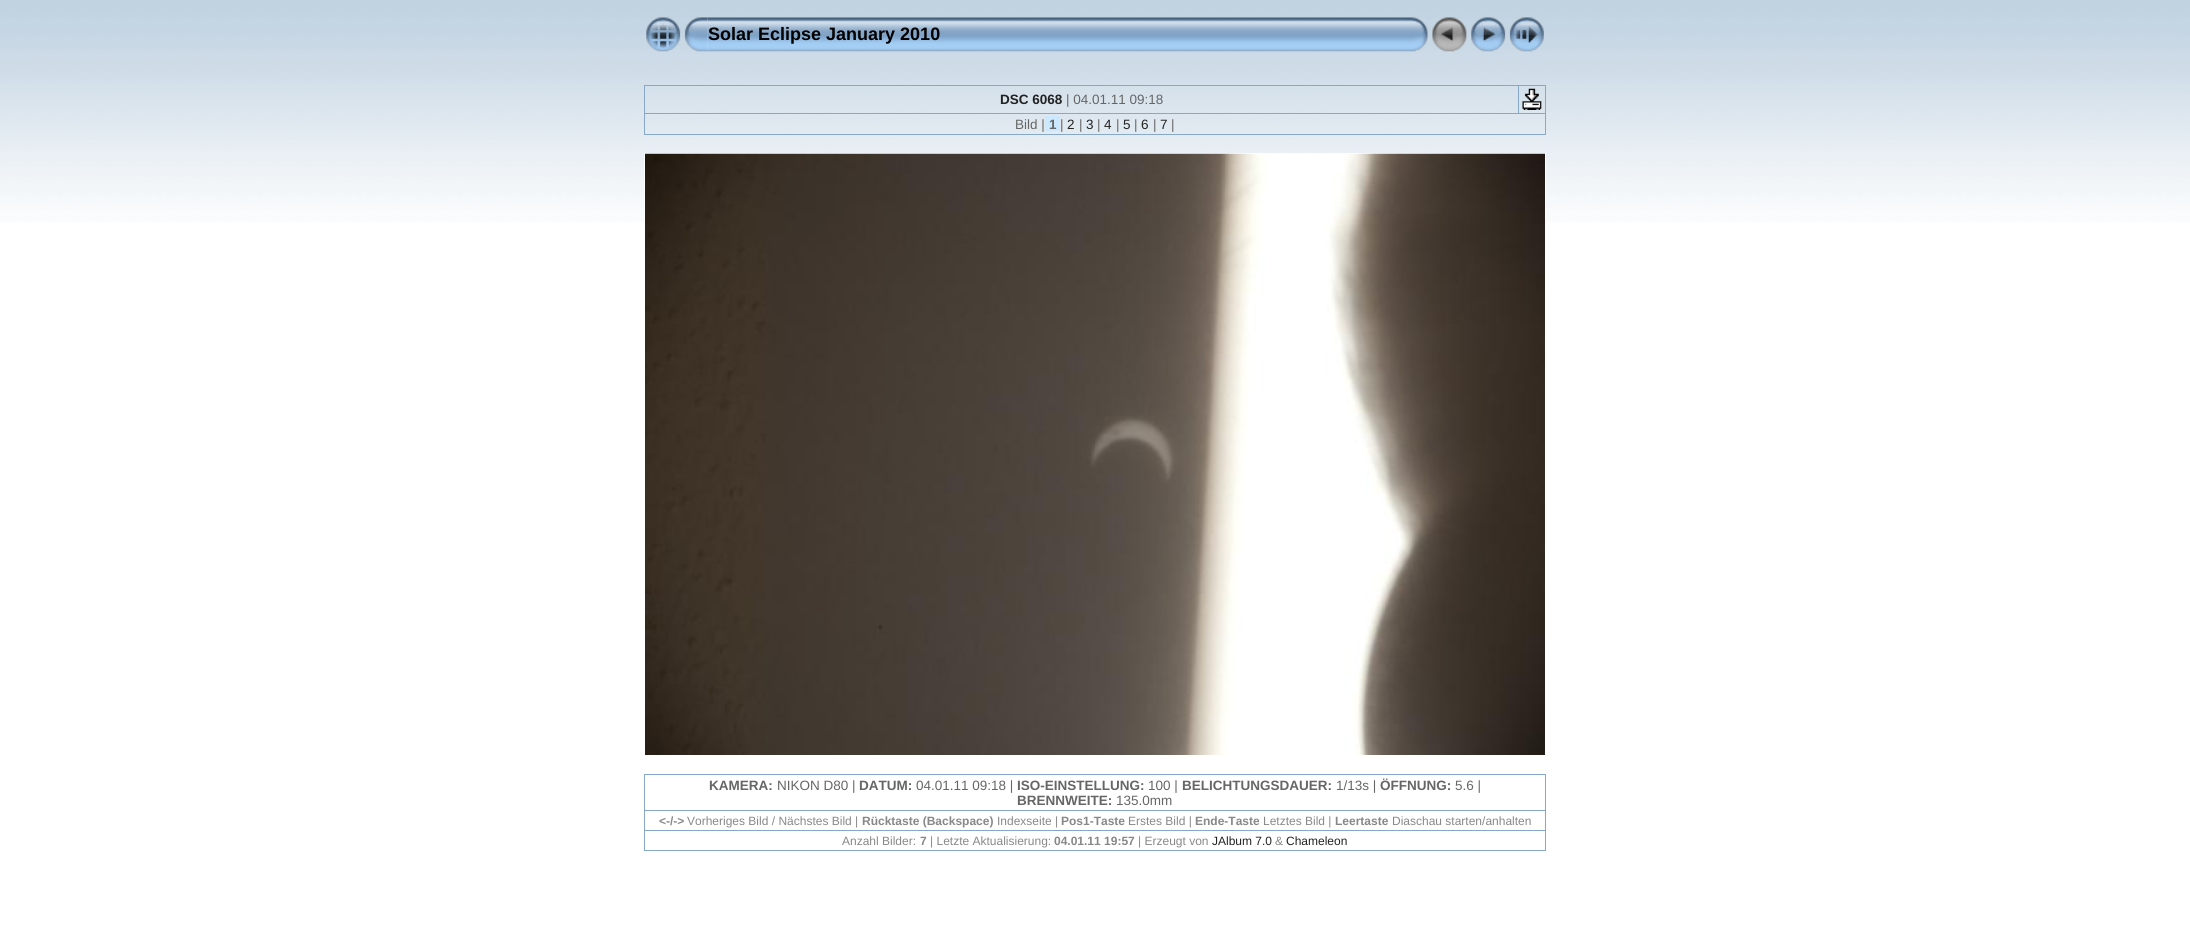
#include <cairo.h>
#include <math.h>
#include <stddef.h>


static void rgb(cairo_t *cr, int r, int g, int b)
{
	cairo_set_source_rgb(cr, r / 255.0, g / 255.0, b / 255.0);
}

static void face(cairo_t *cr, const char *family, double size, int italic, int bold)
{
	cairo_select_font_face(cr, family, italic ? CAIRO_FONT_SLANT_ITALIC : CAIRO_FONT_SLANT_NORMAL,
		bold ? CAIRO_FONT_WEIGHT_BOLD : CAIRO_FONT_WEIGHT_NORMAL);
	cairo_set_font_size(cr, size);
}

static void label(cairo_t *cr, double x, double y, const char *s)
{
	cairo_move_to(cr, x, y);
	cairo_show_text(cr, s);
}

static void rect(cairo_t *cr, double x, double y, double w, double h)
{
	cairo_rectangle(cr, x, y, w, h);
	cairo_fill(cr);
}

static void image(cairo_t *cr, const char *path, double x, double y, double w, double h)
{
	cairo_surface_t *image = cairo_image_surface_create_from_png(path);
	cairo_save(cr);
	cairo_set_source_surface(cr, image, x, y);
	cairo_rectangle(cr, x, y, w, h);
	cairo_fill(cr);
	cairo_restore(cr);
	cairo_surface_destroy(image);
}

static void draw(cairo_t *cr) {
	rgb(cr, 255, 255, 255);
	cairo_paint(cr);
	image(cr, "image0.png", 0, 0, 2190, 222);
	image(cr, "image1.png", 646, 17, 35, 35);
	image(cr, "image3.png", 707, 17, 698, 35);
	image(cr, "image2.png", 684, 17, 24, 35);
	face(cr, "Liberation Sans", 18, 0, 1);
	rgb(cr, 0, 0, 0);
	label(cr, 708, 40, "Solar Eclipse January 2010");
	image(cr, "image4.png", 1405, 17, 23, 35);
	image(cr, "image5.png", 1432, 17, 35, 35);
	image(cr, "image6.png", 1471, 17, 35, 35);
	image(cr, "image7.png", 1509, 17, 35, 35);
	rgb(cr, 136, 168, 202);
	rect(cr, 644, 85, 902, 1);
	rect(cr, 1545, 85, 1, 50);
	rect(cr, 644, 134, 902, 1);
	rect(cr, 644, 85, 1, 50);
	face(cr, "Liberation Sans", 13.5, 0, 1);
	rgb(cr, 34, 34, 34);
	label(cr, 1000, 104, "DSC 6068");
	face(cr, "Liberation Sans", 13.5, 0, 0);
	rgb(cr, 102, 102, 102);
	label(cr, 1066, 104, "| 04.01.11 09:18");
	rgb(cr, 136, 168, 202);
	rect(cr, 644, 113, 902, 1);
	rect(cr, 1518, 85, 1, 29);
	image(cr, "image8.png", 1522, 88, 20, 22);
	rgb(cr, 102, 102, 102);
	label(cr, 1015, 129, "Bild |");
	rgb(cr, 204, 232, 255);
	rect(cr, 1045, 116, 15, 15);
	face(cr, "Liberation Sans", 13.5, 0, 1);
	rgb(cr, 102, 102, 102);
	label(cr, 1049, 129, "1");
	face(cr, "Liberation Sans", 13.5, 0, 0);
	label(cr, 1060, 129, "|");
	rgb(cr, 34, 34, 34);
	label(cr, 1067, 129, "2");
	rgb(cr, 102, 102, 102);
	label(cr, 1079, 129, "|");
	rgb(cr, 34, 34, 34);
	label(cr, 1086, 129, "3");
	rgb(cr, 102, 102, 102);
	label(cr, 1097, 129, "|");
	rgb(cr, 34, 34, 34);
	label(cr, 1104, 129, "4");
	rgb(cr, 102, 102, 102);
	label(cr, 1116, 129, "|");
	rgb(cr, 34, 34, 34);
	label(cr, 1123, 129, "5");
	rgb(cr, 102, 102, 102);
	label(cr, 1134, 129, "|");
	rgb(cr, 34, 34, 34);
	label(cr, 1141, 129, "6");
	rgb(cr, 102, 102, 102);
	label(cr, 1153, 129, "|");
	rgb(cr, 34, 34, 34);
	label(cr, 1160, 129, "7");
	rgb(cr, 102, 102, 102);
	label(cr, 1171, 129, "|");
	cairo_rectangle(cr, 644.5, 153.5, 901, 602);
	rgb(cr, 255, 255, 255);
	cairo_set_line_width(cr, 1);
	cairo_stroke(cr);
	image(cr, "image9.png", 645, 153, 900, 602);
	rgb(cr, 136, 168, 202);
	rect(cr, 644, 774, 902, 1);
	rect(cr, 1545, 774, 1, 77);
	rect(cr, 644, 850, 902, 1);
	rect(cr, 644, 774, 1, 77);
	face(cr, "Liberation Sans", 13.5, 0, 1);
	rgb(cr, 102, 102, 102);
	label(cr, 709, 790, "KAMERA:");
	face(cr, "Liberation Sans", 13.5, 0, 0);
	label(cr, 777, 790, "NIKON D80 |");
	face(cr, "Liberation Sans", 13.5, 0, 1);
	label(cr, 859, 790, "DATUM:");
	face(cr, "Liberation Sans", 13.5, 0, 0);
	label(cr, 916, 790, "04.01.11 09:18 |");
	face(cr, "Liberation Sans", 13.5, 0, 1);
	label(cr, 1017, 790, "ISO-EINSTELLUNG:");
	face(cr, "Liberation Sans", 13.5, 0, 0);
	label(cr, 1148, 790, "100 |");
	face(cr, "Liberation Sans", 13.5, 0, 1);
	label(cr, 1182, 790, "BELICHTUNGSDAUER:");
	face(cr, "Liberation Sans", 13.5, 0, 0);
	label(cr, 1336, 790, "1/13s |");
	face(cr, "Liberation Sans", 13.5, 0, 1);
	label(cr, 1380, 790, "ÖFFNUNG:");
	face(cr, "Liberation Sans", 13.5, 0, 0);
	label(cr, 1455, 790, "5.6 |");
	face(cr, "Liberation Sans", 13.5, 0, 1);
	label(cr, 1017, 805, "BRENNWEITE:");
	face(cr, "Liberation Sans", 13.5, 0, 0);
	label(cr, 1116, 805, "135.0mm");
	rgb(cr, 136, 168, 202);
	rect(cr, 644, 810, 902, 1);
	face(cr, "Liberation Sans", 12, 0, 1);
	rgb(cr, 136, 136, 136);
	label(cr, 659, 825, "<-/->");
	face(cr, "Liberation Sans", 12, 0, 0);
	label(cr, 687, 825, "Vorheriges Bild / Nächstes Bild |");
	face(cr, "Liberation Sans", 12, 0, 1);
	label(cr, 862, 825, "Rücktaste (Backspace)");
	face(cr, "Liberation Sans", 12, 0, 0);
	label(cr, 997, 825, "Indexseite |");
	face(cr, "Liberation Sans", 12, 0, 1);
	label(cr, 1061, 825, "Pos1-Taste");
	face(cr, "Liberation Sans", 12, 0, 0);
	label(cr, 1128, 825, "Erstes Bild |");
	face(cr, "Liberation Sans", 12, 0, 1);
	label(cr, 1195, 825, "Ende-Taste");
	face(cr, "Liberation Sans", 12, 0, 0);
	label(cr, 1263, 825, "Letztes Bild |");
	face(cr, "Liberation Sans", 12, 0, 1);
	label(cr, 1335, 825, "Leertaste");
	face(cr, "Liberation Sans", 12, 0, 0);
	label(cr, 1392, 825, "Diaschau starten/anhalten");
	rgb(cr, 136, 168, 202);
	rect(cr, 644, 830, 902, 1);
	rgb(cr, 136, 136, 136);
	label(cr, 842, 845, "Anzahl Bilder:");
	face(cr, "Liberation Sans", 12, 0, 1);
	label(cr, 920, 845, "7");
	face(cr, "Liberation Sans", 12, 0, 0);
	label(cr, 930, 845, "| Letzte Aktualisierung:");
	face(cr, "Liberation Sans", 12, 0, 1);
	label(cr, 1054, 845, "04.01.11 19:57");
	face(cr, "Liberation Sans", 12, 0, 0);
	label(cr, 1138, 845, "| Erzeugt von");
	rgb(cr, 34, 34, 34);
	label(cr, 1212, 845, "JAlbum 7.0");
	rgb(cr, 136, 136, 136);
	label(cr, 1275, 845, "&");
	rgb(cr, 34, 34, 34);
	label(cr, 1286, 845, "Chameleon");
}

int main(void) {
	cairo_surface_t *surface = cairo_image_surface_create(CAIRO_FORMAT_RGB24, 2190, 932);
	cairo_t *cr = cairo_create(surface);
	cairo_font_options_t *options = cairo_font_options_create();
	cairo_font_options_set_hint_metrics(options, CAIRO_HINT_METRICS_OFF);
	cairo_font_options_set_hint_style(options, CAIRO_HINT_STYLE_NONE);
	cairo_set_font_options(cr, options);
	cairo_set_miter_limit(cr, 4);
	draw(cr);
	cairo_surface_write_to_png(surface, "render.png");
	cairo_font_options_destroy(options);
	cairo_destroy(cr);
	cairo_surface_destroy(surface);
	return 0;
}
